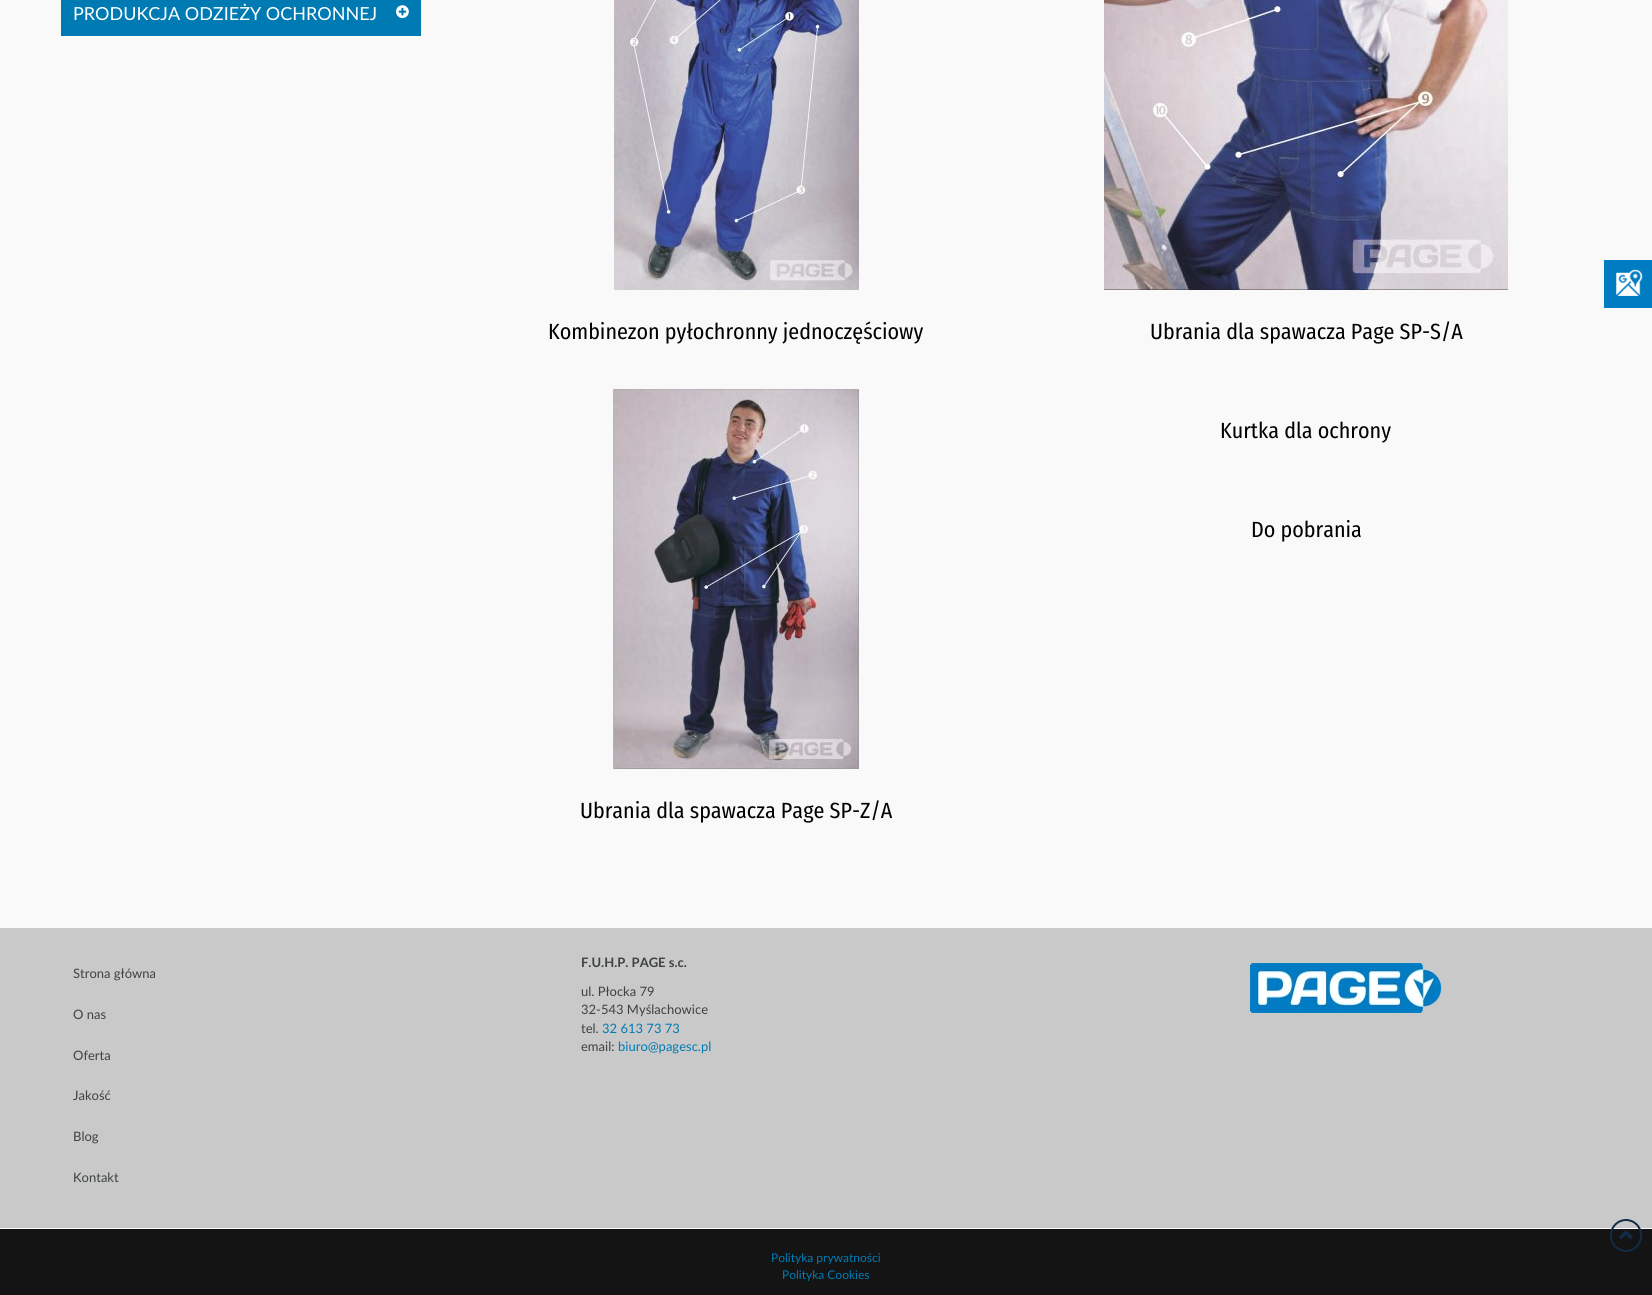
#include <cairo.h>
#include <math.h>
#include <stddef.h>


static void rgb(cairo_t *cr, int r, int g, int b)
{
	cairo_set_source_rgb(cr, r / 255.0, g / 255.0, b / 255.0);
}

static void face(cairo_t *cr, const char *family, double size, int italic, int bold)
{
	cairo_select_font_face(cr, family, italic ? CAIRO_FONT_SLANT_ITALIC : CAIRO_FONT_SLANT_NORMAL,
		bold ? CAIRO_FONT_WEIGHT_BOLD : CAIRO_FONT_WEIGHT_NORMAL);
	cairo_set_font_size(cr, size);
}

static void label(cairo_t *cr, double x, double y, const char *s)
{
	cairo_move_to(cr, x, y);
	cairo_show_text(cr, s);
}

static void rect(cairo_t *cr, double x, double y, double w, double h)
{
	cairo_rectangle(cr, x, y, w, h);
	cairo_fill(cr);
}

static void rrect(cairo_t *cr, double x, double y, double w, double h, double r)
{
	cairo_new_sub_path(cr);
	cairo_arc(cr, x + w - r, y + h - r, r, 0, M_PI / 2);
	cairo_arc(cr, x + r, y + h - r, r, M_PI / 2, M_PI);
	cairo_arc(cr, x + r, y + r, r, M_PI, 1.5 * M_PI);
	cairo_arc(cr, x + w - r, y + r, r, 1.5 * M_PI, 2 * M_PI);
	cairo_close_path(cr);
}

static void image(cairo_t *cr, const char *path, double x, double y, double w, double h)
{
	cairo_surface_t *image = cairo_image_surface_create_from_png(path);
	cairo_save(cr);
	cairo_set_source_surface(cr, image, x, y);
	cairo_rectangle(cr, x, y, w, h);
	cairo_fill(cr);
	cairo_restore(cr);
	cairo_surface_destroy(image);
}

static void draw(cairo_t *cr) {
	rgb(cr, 249, 249, 249);
	cairo_paint(cr);
	rgb(cr, 0, 122, 179);
	rect(cr, 61, 0, 360, 36);
	rgb(cr, 255, 255, 255);
	rect(cr, 61, 36, 360, 1);
	face(cr, "Lato", 18, 0, 0);
	label(cr, 73, 20, "PRODUKCJA ODZIEŻY OCHRONNEJ");
	image(cr, "image0.png", 396, 5, 13, 14);
	image(cr, "image1.png", 614, 0, 245, 290);
	face(cr, "Fira Sans Condensed", 22, 0, 0);
	rgb(cr, 0, 0, 0);
	label(cr, 548, 339, "Kombinezon pyłochronny jednoczęściowy");
	image(cr, "image2.png", 1104, 0, 404, 290);
	label(cr, 1150, 339, "Ubrania dla spawacza Page SP-S/A");
	label(cr, 1220, 438, "Kurtka dla ochrony");
	image(cr, "image3.png", 613, 389, 246, 380);
	label(cr, 580, 818, "Ubrania dla spawacza Page SP-Z/A");
	label(cr, 1251, 537, "Do pobrania");
	rgb(cr, 0, 124, 195);
	rect(cr, 1604, 260, 48, 48);
	image(cr, "image4.png", 1616, 269, 27, 27);
	rgb(cr, 201, 201, 201);
	rect(cr, 0, 928, 1652, 300);
	face(cr, "Lato", 13, 0, 0);
	rgb(cr, 61, 65, 67);
	label(cr, 73, 978, "Strona główna");
	label(cr, 73, 1019, "O nas");
	label(cr, 73, 1060, "Oferta");
	label(cr, 73, 1100, "Jakość");
	label(cr, 73, 1141, "Blog");
	label(cr, 73, 1182, "Kontakt");
	face(cr, "Lato", 13, 0, 1);
	label(cr, 581, 967, "F.U.H.P. PAGE s.c.");
	face(cr, "Lato", 13, 0, 0);
	label(cr, 581, 996, "ul. Płocka 79");
	label(cr, 581, 1014, "32-543 Myślachowice");
	label(cr, 581, 1033, "tel.");
	rgb(cr, 0, 122, 179);
	label(cr, 602, 1033, "32 613 73 73");
	rgb(cr, 61, 65, 67);
	label(cr, 581, 1051, "email:");
	rgb(cr, 0, 122, 179);
	label(cr, 618, 1051, "biuro@pagesc.pl");
	image(cr, "image5.png", 1250, 963, 192, 50);
	rgb(cr, 20, 20, 20);
	rect(cr, 0, 1229, 1652, 66);
	rrect(cr, 1611, 1220, 30, 31, 15);
	rgb(cr, 18, 43, 70);
	cairo_stroke(cr);
	image(cr, "image6.png", 1619, 1230, 14, 10);
	face(cr, "Lato", 12, 0, 0);
	rgb(cr, 0, 122, 179);
	label(cr, 771, 1262, "Polityka prywatności");
	label(cr, 782, 1279, "Polityka Cookies");
}

int main(void) {
	cairo_surface_t *surface = cairo_image_surface_create(CAIRO_FORMAT_RGB24, 1652, 1295);
	cairo_t *cr = cairo_create(surface);
	cairo_font_options_t *options = cairo_font_options_create();
	cairo_font_options_set_hint_metrics(options, CAIRO_HINT_METRICS_OFF);
	cairo_font_options_set_hint_style(options, CAIRO_HINT_STYLE_NONE);
	cairo_set_font_options(cr, options);
	cairo_set_miter_limit(cr, 4);
	draw(cr);
	cairo_surface_write_to_png(surface, "render.png");
	cairo_font_options_destroy(options);
	cairo_destroy(cr);
	cairo_surface_destroy(surface);
	return 0;
}
